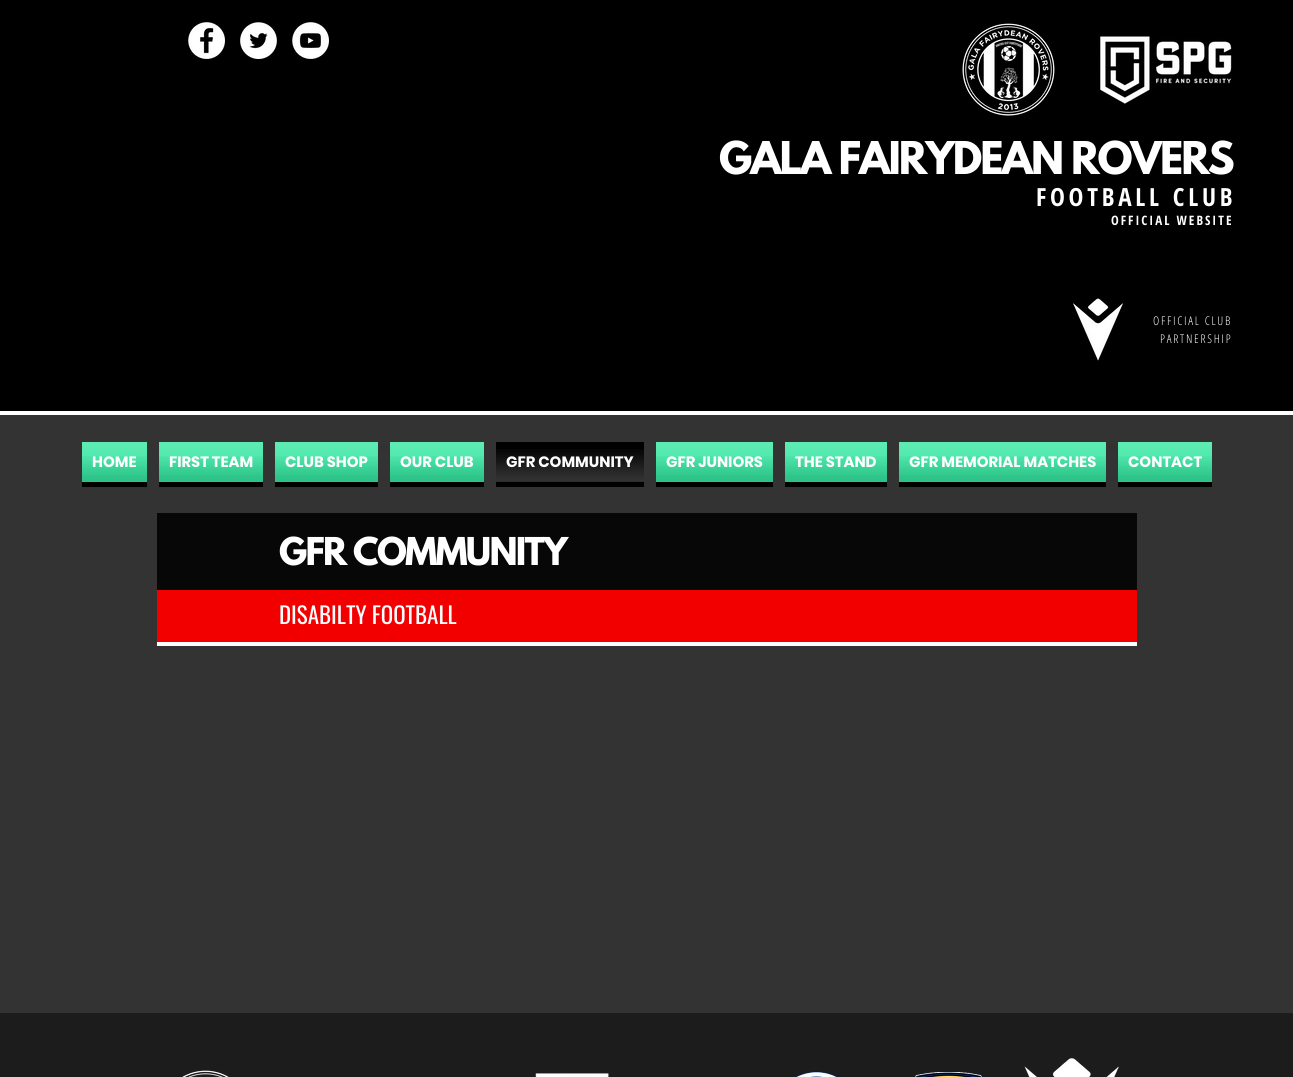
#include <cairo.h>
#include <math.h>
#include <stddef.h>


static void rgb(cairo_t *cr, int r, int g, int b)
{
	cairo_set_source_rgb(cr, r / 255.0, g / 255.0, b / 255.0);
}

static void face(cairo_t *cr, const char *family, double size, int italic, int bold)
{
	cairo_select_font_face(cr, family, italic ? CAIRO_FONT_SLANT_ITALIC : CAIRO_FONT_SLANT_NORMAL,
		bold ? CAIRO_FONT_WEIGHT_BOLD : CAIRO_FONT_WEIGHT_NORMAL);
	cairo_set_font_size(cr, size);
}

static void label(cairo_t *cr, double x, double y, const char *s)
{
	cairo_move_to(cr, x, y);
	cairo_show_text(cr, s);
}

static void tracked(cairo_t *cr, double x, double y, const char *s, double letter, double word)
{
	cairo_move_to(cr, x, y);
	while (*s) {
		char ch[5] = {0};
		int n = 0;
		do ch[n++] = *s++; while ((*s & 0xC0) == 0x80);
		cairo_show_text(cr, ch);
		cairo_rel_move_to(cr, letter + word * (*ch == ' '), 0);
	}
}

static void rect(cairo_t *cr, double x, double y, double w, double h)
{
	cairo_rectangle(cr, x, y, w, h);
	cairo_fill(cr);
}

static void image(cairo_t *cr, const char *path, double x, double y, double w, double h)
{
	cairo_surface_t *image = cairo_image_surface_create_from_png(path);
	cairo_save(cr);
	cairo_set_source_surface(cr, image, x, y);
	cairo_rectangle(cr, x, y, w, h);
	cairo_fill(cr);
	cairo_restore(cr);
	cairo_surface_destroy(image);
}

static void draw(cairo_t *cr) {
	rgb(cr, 51, 51, 51);
	cairo_paint(cr);
	rgb(cr, 0, 0, 0);
	rect(cr, 0, 0, 1293, 411);
	image(cr, "image0.png", 188, 22, 37, 37);
	image(cr, "image1.png", 240, 22, 37, 37);
	image(cr, "image2.png", 292, 22, 37, 37);
	image(cr, "image3.png", 962, 23, 93, 93);
	image(cr, "image4.png", 1100, 36, 132, 68);
	face(cr, "League Spartan", 40, 0, 1);
	rgb(cr, 255, 255, 255);
	tracked(cr, 719, 174, "GALA FAIRYDEAN ROVERS", -2, 0);
	face(cr, "Open Sans Condensed", 25, 0, 1);
	tracked(cr, 1036, 206, "FOOTBALL CLUB", 3.75, 0);
	face(cr, "Open Sans Condensed", 13, 0, 1);
	tracked(cr, 1111, 225, "OFFICIAL WEBSITE", 2, 0);
	image(cr, "image5.png", 1073, 298, 51, 63);
	face(cr, "Open Sans Condensed Light", 12, 0, 0);
	tracked(cr, 1153, 325, "OFFICIAL CLUB", 1.75, 0);
	tracked(cr, 1160, 343, "PARTNERSHIP", 1.75, 0);
	rect(cr, 0, 411, 1293, 4);
	rgb(cr, 0, 0, 0);
	rect(cr, 82, 482, 65, 5);
	rgb(cr, 54, 230, 162);
	rect(cr, 82, 442, 65, 40);
	image(cr, "image6.png", 82, 442, 65, 33);
	image(cr, "image7.png", 82, 456, 65, 26);
	face(cr, "Poppins", 15, 0, 1);
	rgb(cr, 255, 255, 255);
	label(cr, 92, 467, "HOME");
	rgb(cr, 0, 0, 0);
	rect(cr, 159, 482, 104, 5);
	rgb(cr, 54, 230, 162);
	rect(cr, 159, 442, 104, 40);
	image(cr, "image8.png", 159, 442, 104, 33);
	image(cr, "image9.png", 159, 456, 104, 26);
	rgb(cr, 255, 255, 255);
	label(cr, 169, 467, "FIRST TEAM");
	rgb(cr, 0, 0, 0);
	rect(cr, 275, 482, 103, 5);
	rgb(cr, 54, 230, 162);
	rect(cr, 275, 442, 103, 40);
	image(cr, "image10.png", 275, 442, 103, 33);
	image(cr, "image11.png", 275, 456, 103, 26);
	rgb(cr, 255, 255, 255);
	label(cr, 285, 467, "CLUB SHOP");
	rgb(cr, 0, 0, 0);
	rect(cr, 390, 482, 94, 5);
	rgb(cr, 54, 230, 162);
	rect(cr, 390, 442, 94, 40);
	image(cr, "image12.png", 390, 442, 94, 33);
	image(cr, "image13.png", 390, 456, 94, 26);
	rgb(cr, 255, 255, 255);
	label(cr, 400, 467, "OUR CLUB");
	rgb(cr, 0, 0, 0);
	rect(cr, 496, 442, 148, 45);
	image(cr, "image14.png", 496, 449, 148, 33);
	rgb(cr, 255, 255, 255);
	label(cr, 506, 467, "GFR COMMUNITY");
	rgb(cr, 0, 0, 0);
	rect(cr, 656, 482, 117, 5);
	rgb(cr, 54, 230, 162);
	rect(cr, 656, 442, 117, 40);
	image(cr, "image15.png", 656, 442, 117, 33);
	image(cr, "image16.png", 656, 456, 117, 26);
	rgb(cr, 255, 255, 255);
	label(cr, 666, 467, "GFR JUNIORS");
	rgb(cr, 0, 0, 0);
	rect(cr, 785, 482, 102, 5);
	rgb(cr, 54, 230, 162);
	rect(cr, 785, 442, 102, 40);
	image(cr, "image17.png", 785, 442, 102, 33);
	image(cr, "image18.png", 785, 456, 102, 26);
	rgb(cr, 255, 255, 255);
	label(cr, 795, 467, "THE STAND");
	rgb(cr, 0, 0, 0);
	rect(cr, 899, 482, 207, 5);
	rgb(cr, 54, 230, 162);
	rect(cr, 899, 442, 207, 40);
	image(cr, "image19.png", 899, 442, 207, 33);
	image(cr, "image20.png", 899, 456, 207, 26);
	rgb(cr, 255, 255, 255);
	label(cr, 909, 467, "GFR MEMORIAL MATCHES");
	rgb(cr, 0, 0, 0);
	rect(cr, 1118, 482, 94, 5);
	rgb(cr, 54, 230, 162);
	rect(cr, 1118, 442, 94, 40);
	image(cr, "image12.png", 1118, 442, 94, 33);
	image(cr, "image13.png", 1118, 456, 94, 26);
	rgb(cr, 255, 255, 255);
	label(cr, 1128, 467, "CONTACT");
	rgb(cr, 7, 7, 7);
	rect(cr, 157, 513, 980, 77);
	face(cr, "League Spartan", 34, 0, 1);
	rgb(cr, 255, 255, 255);
	tracked(cr, 279, 565, "GFR COMMUNITY", -1.75, 0);
	rgb(cr, 242, 0, 0);
	rect(cr, 157, 590, 980, 52);
	face(cr, "Oswald", 23, 0, 0);
	rgb(cr, 255, 255, 255);
	label(cr, 279, 624, "DISABILTY FOOTBALL");
	rect(cr, 157, 642, 980, 4);
	rgb(cr, 28, 28, 28);
	rect(cr, 0, 1013, 1293, 64);
	image(cr, "image21.png", 182, 1070, 47, 7);
	image(cr, "image22.png", 535, 1073, 74, 4);
	image(cr, "image23.png", 796, 1071, 41, 6);
	image(cr, "image24.png", 915, 1072, 67, 5);
	image(cr, "image25.png", 1024, 1058, 95, 19);
}

int main(void) {
	cairo_surface_t *surface = cairo_image_surface_create(CAIRO_FORMAT_RGB24, 1293, 1077);
	cairo_t *cr = cairo_create(surface);
	cairo_font_options_t *options = cairo_font_options_create();
	cairo_font_options_set_hint_metrics(options, CAIRO_HINT_METRICS_OFF);
	cairo_font_options_set_hint_style(options, CAIRO_HINT_STYLE_NONE);
	cairo_set_font_options(cr, options);
	cairo_set_miter_limit(cr, 4);
	draw(cr);
	cairo_surface_write_to_png(surface, "render.png");
	cairo_font_options_destroy(options);
	cairo_destroy(cr);
	cairo_surface_destroy(surface);
	return 0;
}
